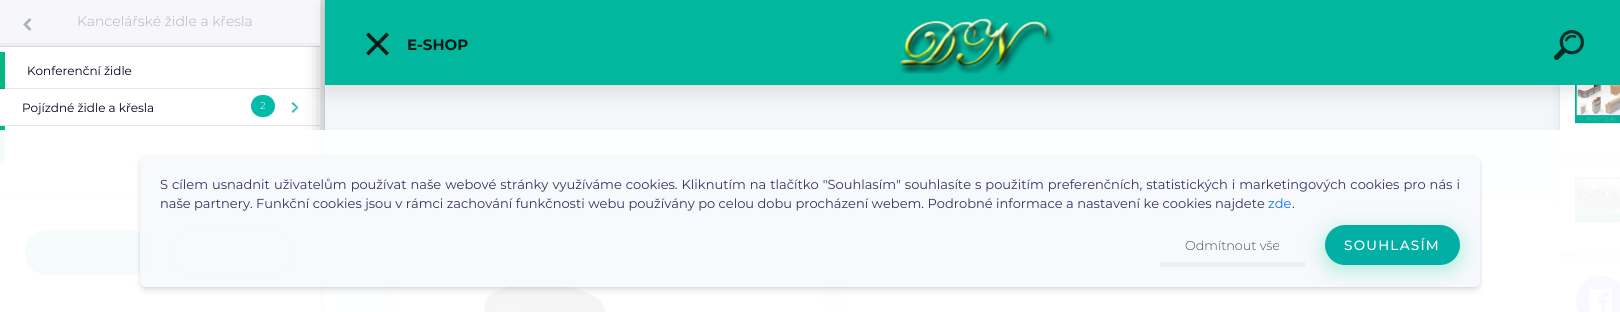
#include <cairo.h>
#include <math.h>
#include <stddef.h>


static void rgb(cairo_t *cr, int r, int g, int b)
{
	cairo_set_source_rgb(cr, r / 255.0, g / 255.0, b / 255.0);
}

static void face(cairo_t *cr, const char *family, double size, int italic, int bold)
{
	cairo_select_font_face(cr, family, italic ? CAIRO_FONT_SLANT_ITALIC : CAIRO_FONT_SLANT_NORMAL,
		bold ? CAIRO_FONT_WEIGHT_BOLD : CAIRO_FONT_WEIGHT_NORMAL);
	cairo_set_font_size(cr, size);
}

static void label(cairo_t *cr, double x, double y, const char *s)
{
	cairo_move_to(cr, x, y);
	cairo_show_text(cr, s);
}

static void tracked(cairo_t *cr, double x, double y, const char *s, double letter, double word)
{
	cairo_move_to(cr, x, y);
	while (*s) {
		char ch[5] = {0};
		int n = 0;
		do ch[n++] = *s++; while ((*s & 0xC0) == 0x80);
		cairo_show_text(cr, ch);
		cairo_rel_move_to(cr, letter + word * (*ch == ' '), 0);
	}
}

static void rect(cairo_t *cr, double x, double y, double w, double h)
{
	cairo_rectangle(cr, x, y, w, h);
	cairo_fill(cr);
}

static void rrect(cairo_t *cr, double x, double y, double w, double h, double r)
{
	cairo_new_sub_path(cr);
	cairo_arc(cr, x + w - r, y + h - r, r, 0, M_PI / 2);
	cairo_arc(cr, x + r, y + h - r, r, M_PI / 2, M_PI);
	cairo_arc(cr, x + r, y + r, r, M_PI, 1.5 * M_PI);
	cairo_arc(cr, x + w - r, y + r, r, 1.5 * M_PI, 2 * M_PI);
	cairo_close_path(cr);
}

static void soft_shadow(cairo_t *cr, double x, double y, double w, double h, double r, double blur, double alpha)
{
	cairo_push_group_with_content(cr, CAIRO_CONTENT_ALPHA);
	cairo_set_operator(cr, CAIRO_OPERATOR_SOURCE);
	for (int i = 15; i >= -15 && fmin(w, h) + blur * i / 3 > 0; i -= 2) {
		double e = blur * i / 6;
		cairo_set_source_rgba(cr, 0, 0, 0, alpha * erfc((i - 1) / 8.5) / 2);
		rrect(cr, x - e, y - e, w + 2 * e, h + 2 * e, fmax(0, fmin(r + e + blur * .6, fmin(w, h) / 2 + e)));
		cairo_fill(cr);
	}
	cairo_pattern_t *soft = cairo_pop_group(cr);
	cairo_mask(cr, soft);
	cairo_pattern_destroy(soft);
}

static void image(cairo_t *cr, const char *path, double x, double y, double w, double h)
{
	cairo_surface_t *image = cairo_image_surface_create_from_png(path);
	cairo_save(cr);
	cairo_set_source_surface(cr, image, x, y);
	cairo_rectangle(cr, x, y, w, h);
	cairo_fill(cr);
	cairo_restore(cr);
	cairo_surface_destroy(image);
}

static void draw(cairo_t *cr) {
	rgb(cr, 255, 255, 255);
	cairo_paint(cr);
	rgb(cr, 0, 0, 0);
	soft_shadow(cr, 335, -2, 320, 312, 0, 12.5, 1);
	cairo_set_source_rgba(cr, 0, 0, 0, 0.15);
	rect(cr, 0, 46, 320, 1);
	rgb(cr, 247, 246, 251);
	rect(cr, 0, 0, 320, 43);
	rgb(cr, 236, 240, 241);
	rect(cr, 0, 43, 320, 3);
	image(cr, "image0.png", 23, 18, 9, 13);
	face(cr, "Montserrat Light", 14, 0, 0);
	rgb(cr, 171, 180, 190);
	label(cr, 77, 26, "Kancelářské židle a křesla");
	rgb(cr, 4, 183, 132);
	rect(cr, 0, 52, 5, 37);
	face(cr, "Montserrat", 12, 0, 0);
	rgb(cr, 0, 0, 25);
	label(cr, 27, 75, "Konferenční židle");
	cairo_set_source_rgba(cr, 0, 0, 0, 0.1);
	rect(cr, 0, 88, 320, 1);
	rgb(cr, 0, 0, 25);
	label(cr, 22, 112, "Pojízdné židle a křesla");
	rgb(cr, 3, 187, 170);
	rrect(cr, 251, 95, 24, 22, 11);
	cairo_fill(cr);
	face(cr, "Montserrat Light", 10, 0, 0);
	rgb(cr, 255, 255, 255);
	label(cr, 260, 109, "2");
	rgb(cr, 46, 195, 174);
	cairo_new_path(cr);
	cairo_move_to(cr, 298.5, 107.5);
	cairo_line_to(cr, 293, 113);
	cairo_line_to(cr, 291.5, 111.5);
	cairo_line_to(cr, 296, 107.5);
	cairo_close_path(cr);
	cairo_fill(cr);
	cairo_set_source_rgba(cr, 0.012, 0.718, 0.62, 0.83);
	cairo_new_path(cr);
	cairo_move_to(cr, 293, 102);
	cairo_line_to(cr, 298.5, 107.5);
	cairo_line_to(cr, 296, 107.5);
	cairo_line_to(cr, 291.5, 103.5);
	cairo_close_path(cr);
	cairo_fill(cr);
	cairo_set_source_rgba(cr, 0, 0, 0, 0.1);
	rect(cr, 0, 125, 320, 1);
	rgb(cr, 4, 183, 132);
	rect(cr, 0, 126, 5, 37);
	cairo_set_source_rgba(cr, 0, 0, 0, 0.1);
	rect(cr, 0, 162, 320, 1);
	rgb(cr, 255, 255, 255);
	rect(cr, 306, 193, 14, 119);
	rgb(cr, 217, 217, 217);
	rect(cr, 0, 192, 320, 1);
	rgb(cr, 46, 195, 174);
	rrect(cr, 25, 230, 128, 45, 22.5);
	cairo_fill(cr);
	rrect(cr, 25.5, 230.5, 127, 44, 22);
	cairo_set_source_rgba(cr, 0.012, 0.718, 0.62, 0.83);
	cairo_set_line_width(cr, 1);
	cairo_stroke(cr);
	rrect(cr, 169, 231, 126, 43, 21.5);
	rgb(cr, 46, 195, 174);
	cairo_set_line_width(cr, 2);
	cairo_stroke(cr);
	rgb(cr, 244, 247, 249);
	rect(cr, 325, 85, 1295, 227);
	rgb(cr, 0, 0, 0);
	soft_shadow(cr, 1560, 69, 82, 90, 6, 7.5, 0.07);
	rgb(cr, 50, 50, 93);
	soft_shadow(cr, 1560, 66, 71, 90, 6, 1.5, 0.1);
	rgb(cr, 255, 255, 255);
	rrect(cr, 1560, 64, 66, 90, 6);
	cairo_fill(cr);
	image(cr, "image3.png", 1575, 85, 45, 39);
	rgb(cr, 0, 0, 0);
	soft_shadow(cr, 325, 8, 1295, 85, 0, 8, 0.1);
	rgb(cr, 1, 183, 157);
	rect(cr, 325, 0, 1295, 85);
	rgb(cr, 0, 27, 24);
	cairo_new_path(cr);
	cairo_move_to(cr, 389, 35);
	cairo_line_to(cr, 368.5, 55.5);
	cairo_line_to(cr, 366, 53);
	cairo_line_to(cr, 386.5, 32.5);
	cairo_close_path(cr);
	cairo_fill(cr);
	cairo_new_path(cr);
	cairo_move_to(cr, 386.5, 55.5);
	cairo_line_to(cr, 366, 35);
	cairo_line_to(cr, 368.5, 32.5);
	cairo_line_to(cr, 389, 53);
	cairo_close_path(cr);
	cairo_fill(cr);
	face(cr, "Montserrat", 15, 0, 1);
	label(cr, 407, 50, "E-SHOP");
	image(cr, "image1.png", 899, 18, 156, 56);
	image(cr, "image2.png", 1554, 30, 30, 30);
	rgb(cr, 0, 0, 0);
	soft_shadow(cr, 847, 205, 713, 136, 6, 7.5, 0.07);
	rgb(cr, 50, 50, 93);
	soft_shadow(cr, 847, 202, 713, 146, 6, 10, 0.1);
	rgb(cr, 255, 255, 255);
	rrect(cr, 847, 200, 713, 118, 6);
	cairo_fill(cr);
	rgb(cr, 0, 0, 0);
	soft_shadow(cr, 1560, 167, 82, 91, 6, 7.5, 0.07);
	rgb(cr, 50, 50, 93);
	soft_shadow(cr, 1560, 164, 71, 91, 6, 1.5, 0.1);
	rgb(cr, 255, 255, 255);
	rrect(cr, 1560, 162, 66, 91, 6);
	cairo_fill(cr);
	image(cr, "image4.png", 1575, 177, 45, 46);
	rgb(cr, 0, 0, 0);
	soft_shadow(cr, 1560, 266, 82, 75, 6, 7.5, 0.07);
	rgb(cr, 50, 50, 93);
	soft_shadow(cr, 1560, 263, 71, 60, 6, 1.5, 0.1);
	rgb(cr, 255, 255, 255);
	rrect(cr, 1560, 261, 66, 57, 6);
	cairo_fill(cr);
	rgb(cr, 117, 109, 231);
	cairo_arc(cr, 1601, 301, 25, 0, 2 * M_PI);
	cairo_fill(cr);
	image(cr, "image5.png", 1589, 289, 24, 23);
	rgb(cr, 50, 50, 93);
	soft_shadow(cr, 396, 202, 427, 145, 5, 10, 0.1);
	rgb(cr, 0, 0, 0);
	soft_shadow(cr, 396, 205, 427, 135, 5, 7.5, 0.07);
	rgb(cr, 255, 255, 255);
	rrect(cr, 396, 200, 427, 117, 5);
	cairo_fill(cr);
	image(cr, "image6.png", 483, 284, 124, 28);
	cairo_set_source_rgba(cr, 1, 1, 1, 0.95);
	rect(cr, 0, 130, 1620, 182);
	cairo_save(cr);
	cairo_set_fill_rule(cr, CAIRO_FILL_RULE_EVEN_ODD);
	cairo_new_path(cr);
	cairo_move_to(cr, 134, 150);
	cairo_line_to(cr, 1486, 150);
	cairo_line_to(cr, 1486, 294);
	cairo_line_to(cr, 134, 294);
	cairo_close_path(cr);
	cairo_move_to(cr, 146, 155);
	cairo_line_to(cr, 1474, 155);
	cairo_curve_to(cr, 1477.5, 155, 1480, 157.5, 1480, 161);
	cairo_line_to(cr, 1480, 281);
	cairo_curve_to(cr, 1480, 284.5, 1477.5, 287, 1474, 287);
	cairo_line_to(cr, 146, 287);
	cairo_curve_to(cr, 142.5, 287, 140, 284.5, 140, 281);
	cairo_line_to(cr, 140, 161);
	cairo_curve_to(cr, 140, 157.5, 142.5, 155, 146, 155);
	cairo_close_path(cr);
	cairo_clip(cr);
	rgb(cr, 0, 0, 0);
	soft_shadow(cr, 140, 156, 1340, 132, 6, 1.5, 0.08);
	cairo_restore(cr);
	cairo_save(cr);
	cairo_set_fill_rule(cr, CAIRO_FILL_RULE_EVEN_ODD);
	cairo_new_path(cr);
	cairo_move_to(cr, 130, 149);
	cairo_line_to(cr, 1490, 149);
	cairo_line_to(cr, 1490, 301);
	cairo_line_to(cr, 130, 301);
	cairo_close_path(cr);
	cairo_move_to(cr, 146, 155);
	cairo_line_to(cr, 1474, 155);
	cairo_curve_to(cr, 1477.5, 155, 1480, 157.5, 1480, 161);
	cairo_line_to(cr, 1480, 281);
	cairo_curve_to(cr, 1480, 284.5, 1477.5, 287, 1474, 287);
	cairo_line_to(cr, 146, 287);
	cairo_curve_to(cr, 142.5, 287, 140, 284.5, 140, 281);
	cairo_line_to(cr, 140, 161);
	cairo_curve_to(cr, 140, 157.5, 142.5, 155, 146, 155);
	cairo_close_path(cr);
	cairo_clip(cr);
	rgb(cr, 50, 50, 93);
	soft_shadow(cr, 140, 159, 1340, 132, 6, 3, 0.11);
	cairo_restore(cr);
	cairo_set_source_rgba(cr, 0.965, 0.976, 0.988, 0.9);
	rrect(cr, 140, 155, 1340, 132, 6);
	cairo_fill(cr);
	face(cr, "Montserrat", 13, 0, 0);
	rgb(cr, 50, 50, 93);
	tracked(cr, 160, 189, "S cílem usnadnit uživatelům používat naše webové stránky využíváme cookies. Kliknutím na tlačítko \"Souhlasím\" souhlasíte s použitím preferenčních, statistických i marketingových cookies pro nás i", 0, 0.6);
	label(cr, 160, 208, "naše partnery. Funkční cookies jsou v rámci zachování funkčnosti webu používány po celou dobu procházení webem. Podrobné informace a nastavení ke cookies najdete");
	rgb(cr, 13, 110, 253);
	label(cr, 1268, 208, "zde");
	rgb(cr, 50, 50, 93);
	label(cr, 1292, 208, ".");
	rgb(cr, 58, 214, 166);
	soft_shadow(cr, 1325, 230, 135, 40, 20, 10, 0.4);
	rgb(cr, 236, 238, 240);
	rect(cr, 1160, 262, 145, 5);
	face(cr, "Montserrat Light", 12.75, 0, 0);
	rgb(cr, 74, 75, 76);
	label(cr, 1185, 250, "Odmítnout vše");
	rgb(cr, 2, 175, 165);
	rrect(cr, 1325, 225, 135, 40, 20);
	cairo_fill(cr);
	face(cr, "Montserrat Medium", 13.5, 0, 0);
	rgb(cr, 255, 255, 255);
	tracked(cr, 1344, 250, "SOUHLASÍM", 1.25, 0);
}

int main(void) {
	cairo_surface_t *surface = cairo_image_surface_create(CAIRO_FORMAT_RGB24, 1620, 312);
	cairo_t *cr = cairo_create(surface);
	cairo_font_options_t *options = cairo_font_options_create();
	cairo_font_options_set_hint_metrics(options, CAIRO_HINT_METRICS_OFF);
	cairo_font_options_set_hint_style(options, CAIRO_HINT_STYLE_NONE);
	cairo_set_font_options(cr, options);
	cairo_set_miter_limit(cr, 4);
	draw(cr);
	cairo_surface_write_to_png(surface, "render.png");
	cairo_font_options_destroy(options);
	cairo_destroy(cr);
	cairo_surface_destroy(surface);
	return 0;
}
